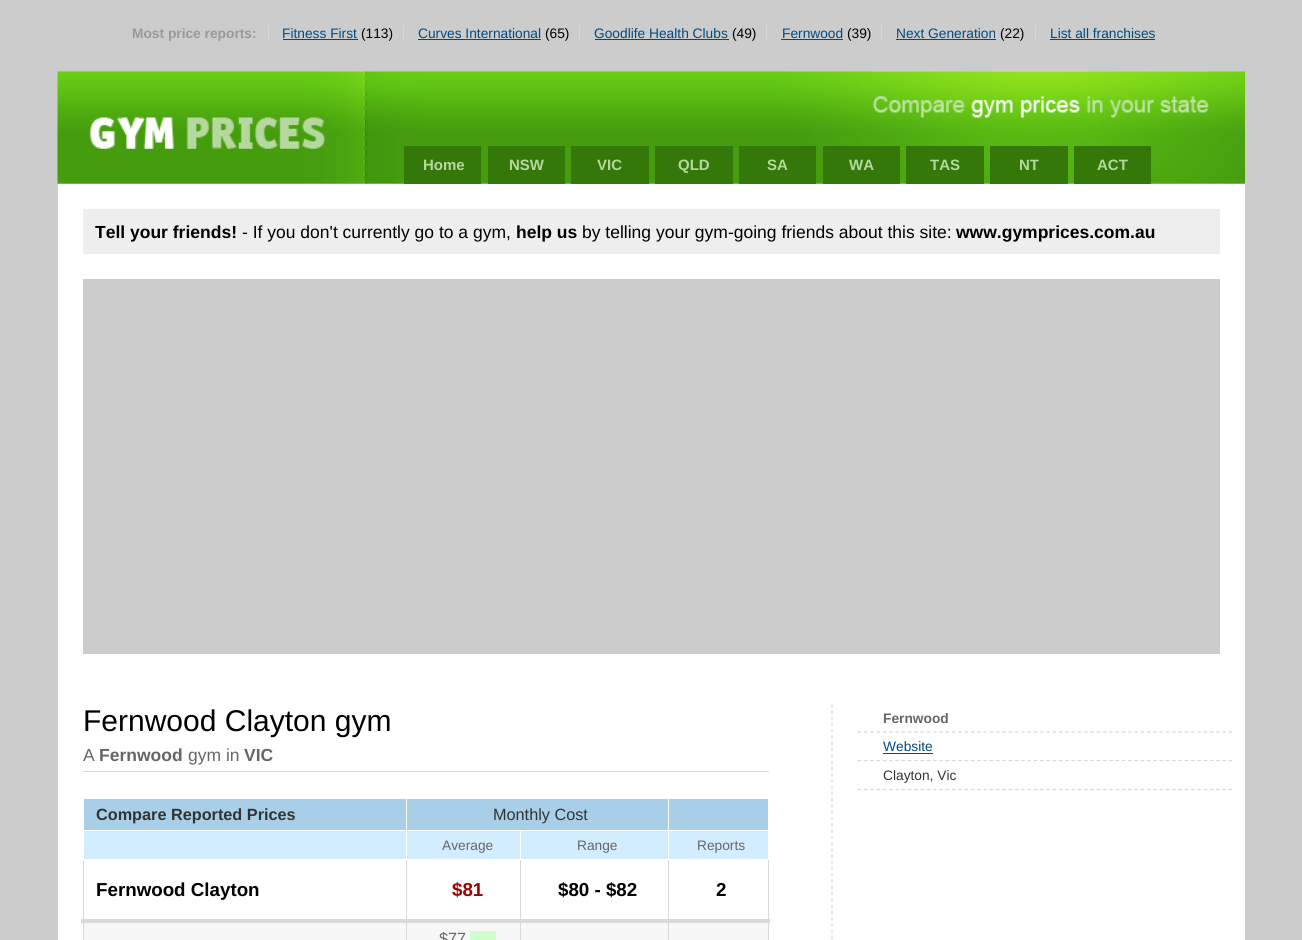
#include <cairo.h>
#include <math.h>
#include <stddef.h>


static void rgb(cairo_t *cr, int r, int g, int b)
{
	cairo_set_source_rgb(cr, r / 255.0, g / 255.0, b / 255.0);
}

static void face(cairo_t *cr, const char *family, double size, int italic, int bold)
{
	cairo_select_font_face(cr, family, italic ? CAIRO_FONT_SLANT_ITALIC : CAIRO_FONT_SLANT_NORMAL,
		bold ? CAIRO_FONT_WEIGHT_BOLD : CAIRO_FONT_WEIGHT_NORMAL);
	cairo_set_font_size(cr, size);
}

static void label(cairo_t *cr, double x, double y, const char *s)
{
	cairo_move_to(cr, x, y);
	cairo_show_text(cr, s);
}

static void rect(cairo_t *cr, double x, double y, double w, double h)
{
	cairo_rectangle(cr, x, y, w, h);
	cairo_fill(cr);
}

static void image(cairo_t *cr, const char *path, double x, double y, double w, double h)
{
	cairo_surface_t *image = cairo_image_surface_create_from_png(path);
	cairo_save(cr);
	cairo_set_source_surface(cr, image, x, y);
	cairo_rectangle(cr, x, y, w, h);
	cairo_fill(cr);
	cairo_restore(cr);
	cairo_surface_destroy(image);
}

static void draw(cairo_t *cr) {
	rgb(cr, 204, 204, 204);
	cairo_paint(cr);
	rgb(cr, 255, 255, 255);
	rect(cr, 58, 71, 1187, 869);
	face(cr, "Liberation Sans", 13.75, 0, 1);
	rgb(cr, 153, 153, 153);
	label(cr, 132, 38, "Most price reports:");
	rgb(cr, 217, 217, 217);
	rect(cr, 268, 25, 1, 15);
	face(cr, "Liberation Sans", 13.75, 0, 0);
	rgb(cr, 0, 74, 128);
	label(cr, 282, 38, "Fitness First");
	rect(cr, 283, 39, 75, 1);
	rgb(cr, 0, 0, 0);
	label(cr, 361, 38, "(113)");
	rgb(cr, 217, 217, 217);
	rect(cr, 403, 25, 1, 15);
	rgb(cr, 0, 74, 128);
	label(cr, 418, 38, "Curves International");
	rect(cr, 418, 39, 123, 1);
	rgb(cr, 0, 0, 0);
	label(cr, 545, 38, "(65)");
	rgb(cr, 217, 217, 217);
	rect(cr, 579, 25, 1, 15);
	rgb(cr, 0, 74, 128);
	label(cr, 594, 38, "Goodlife Health Clubs");
	rect(cr, 595, 39, 134, 1);
	rgb(cr, 0, 0, 0);
	label(cr, 732, 38, "(49)");
	rgb(cr, 217, 217, 217);
	rect(cr, 766, 25, 1, 15);
	rgb(cr, 0, 74, 128);
	label(cr, 782, 38, "Fernwood");
	rect(cr, 781, 39, 62, 1);
	rgb(cr, 0, 0, 0);
	label(cr, 847, 38, "(39)");
	rgb(cr, 217, 217, 217);
	rect(cr, 881, 25, 1, 15);
	rgb(cr, 0, 74, 128);
	label(cr, 896, 38, "Next Generation");
	rect(cr, 896, 39, 100, 1);
	rgb(cr, 0, 0, 0);
	label(cr, 1000, 38, "(22)");
	rgb(cr, 217, 217, 217);
	rect(cr, 1035, 25, 1, 15);
	rgb(cr, 0, 74, 128);
	label(cr, 1050, 38, "List all franchises");
	rect(cr, 1050, 39, 105, 1);
	image(cr, "image0.png", 57, 71, 1188, 113);
	rgb(cr, 51, 120, 8);
	rect(cr, 404, 146, 77, 38);
	face(cr, "Liberation Sans", 15, 0, 1);
	rgb(cr, 181, 216, 159);
	label(cr, 423, 170, "Home");
	rgb(cr, 51, 120, 8);
	rect(cr, 488, 146, 77, 38);
	rgb(cr, 181, 216, 159);
	label(cr, 509, 170, "NSW");
	rgb(cr, 51, 120, 8);
	rect(cr, 571, 146, 78, 38);
	rgb(cr, 181, 216, 159);
	label(cr, 597, 170, "VIC");
	rgb(cr, 51, 120, 8);
	rect(cr, 655, 146, 78, 38);
	rgb(cr, 181, 216, 159);
	label(cr, 678, 170, "QLD");
	rgb(cr, 51, 120, 8);
	rect(cr, 739, 146, 77, 38);
	rgb(cr, 181, 216, 159);
	label(cr, 767, 170, "SA");
	rgb(cr, 51, 120, 8);
	rect(cr, 823, 146, 77, 38);
	rgb(cr, 181, 216, 159);
	label(cr, 849, 170, "WA");
	rgb(cr, 51, 120, 8);
	rect(cr, 906, 146, 78, 38);
	rgb(cr, 181, 216, 159);
	label(cr, 930, 170, "TAS");
	rgb(cr, 51, 120, 8);
	rect(cr, 990, 146, 78, 38);
	rgb(cr, 181, 216, 159);
	label(cr, 1019, 170, "NT");
	rgb(cr, 51, 120, 8);
	rect(cr, 1074, 146, 77, 38);
	rgb(cr, 181, 216, 159);
	label(cr, 1097, 170, "ACT");
	rgb(cr, 238, 238, 238);
	rect(cr, 83, 209, 1137, 45);
	face(cr, "Liberation Sans", 17.5, 0, 1);
	rgb(cr, 0, 0, 0);
	label(cr, 95, 238, "Tell your friends!");
	face(cr, "Liberation Sans", 17.5, 0, 0);
	label(cr, 242, 238, "- If you don't currently go to a gym,");
	face(cr, "Liberation Sans", 17.5, 0, 1);
	label(cr, 516, 238, "help us");
	face(cr, "Liberation Sans", 17.5, 0, 0);
	label(cr, 582, 238, "by telling your gym-going friends about this site:");
	face(cr, "Liberation Sans", 17.5, 0, 1);
	label(cr, 956, 238, "www.gymprices.com.au");
	rgb(cr, 204, 204, 204);
	rect(cr, 83, 279, 1137, 375);
	rgb(cr, 217, 217, 217);
	rect(cr, 83, 771, 686, 1);
	face(cr, "Liberation Sans", 30, 0, 0);
	rgb(cr, 0, 0, 0);
	label(cr, 83, 731, "Fernwood Clayton gym");
	face(cr, "Liberation Sans", 17.5, 0, 0);
	rgb(cr, 102, 102, 102);
	label(cr, 83, 761, "A");
	face(cr, "Liberation Sans", 17.5, 0, 1);
	label(cr, 99, 761, "Fernwood");
	face(cr, "Liberation Sans", 17.5, 0, 0);
	label(cr, 188, 761, "gym in");
	face(cr, "Liberation Sans", 17.5, 0, 1);
	label(cr, 244, 761, "VIC");
	rgb(cr, 217, 217, 217);
	rect(cr, 768, 860, 1, 80);
	rect(cr, 83, 860, 1, 80);
	rgb(cr, 169, 207, 232);
	rect(cr, 84, 799, 584, 31);
	face(cr, "Liberation Sans", 16.25, 0, 1);
	rgb(cr, 51, 51, 51);
	label(cr, 96, 820, "Compare Reported Prices");
	face(cr, "Liberation Sans", 16.25, 0, 0);
	label(cr, 493, 820, "Monthly Cost");
	rgb(cr, 169, 207, 232);
	rect(cr, 669, 799, 99, 31);
	rgb(cr, 210, 237, 255);
	rect(cr, 84, 831, 436, 28);
	rgb(cr, 247, 247, 247);
	rect(cr, 84, 923, 436, 17);
	rgb(cr, 217, 217, 217);
	rect(cr, 406, 859, 1, 81);
	rgb(cr, 255, 255, 255);
	rect(cr, 406, 798, 1, 62);
	face(cr, "Liberation Sans", 13.75, 0, 0);
	rgb(cr, 102, 102, 102);
	label(cr, 442, 850, "Average");
	rgb(cr, 210, 237, 255);
	rect(cr, 521, 831, 147, 28);
	rgb(cr, 217, 217, 217);
	rect(cr, 520, 859, 1, 81);
	rgb(cr, 255, 255, 255);
	rect(cr, 520, 859, 1, 1);
	rgb(cr, 102, 102, 102);
	label(cr, 577, 850, "Range");
	rgb(cr, 210, 237, 255);
	rect(cr, 669, 831, 99, 28);
	rgb(cr, 217, 217, 217);
	rect(cr, 668, 859, 1, 81);
	rgb(cr, 255, 255, 255);
	rect(cr, 668, 859, 1, 1);
	rgb(cr, 102, 102, 102);
	label(cr, 697, 850, "Reports");
	face(cr, "Liberation Sans", 18.75, 0, 1);
	rgb(cr, 0, 0, 0);
	label(cr, 96, 896, "Fernwood Clayton");
	rgb(cr, 153, 0, 0);
	label(cr, 452, 896, "$81");
	rgb(cr, 0, 0, 0);
	label(cr, 558, 896, "$80 - $82");
	rgb(cr, 217, 217, 217);
	rect(cr, 81, 919, 689, 4);
	rgb(cr, 0, 0, 0);
	label(cr, 716, 896, "2");
	rgb(cr, 247, 247, 247);
	rect(cr, 521, 923, 147, 17);
	rect(cr, 669, 923, 99, 17);
	face(cr, "Liberation Sans", 16.25, 0, 0);
	rgb(cr, 102, 102, 102);
	label(cr, 439, 944, "$77");
	rgb(cr, 204, 255, 204);
	rect(cr, 470, 931, 26, 9);
	cairo_new_path(cr);
	cairo_move_to(cr, 832, 704);
	cairo_line_to(cr, 832, 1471);
	rgb(cr, 217, 217, 217);
	cairo_set_line_width(cr, 1.2);
	cairo_set_dash(cr, (double[]){3.75, 2.51}, 2, 0);
	cairo_stroke(cr);
	cairo_new_path(cr);
	cairo_move_to(cr, 857.5, 732);
	cairo_line_to(cr, 1232.5, 732);
	cairo_set_dash(cr, (double[]){3.75, 2.54}, 2, 0);
	cairo_stroke(cr);
	face(cr, "Liberation Sans", 13.75, 0, 1);
	rgb(cr, 102, 102, 102);
	label(cr, 883, 723, "Fernwood");
	cairo_new_path(cr);
	cairo_move_to(cr, 857.5, 760.5);
	cairo_line_to(cr, 1232.5, 760.5);
	rgb(cr, 217, 217, 217);
	cairo_stroke(cr);
	face(cr, "Liberation Sans", 13.75, 0, 0);
	rgb(cr, 0, 74, 128);
	label(cr, 883, 751, "Website");
	rect(cr, 883, 753, 50, 1);
	cairo_new_path(cr);
	cairo_move_to(cr, 857.5, 789.5);
	cairo_line_to(cr, 1232.5, 789.5);
	rgb(cr, 217, 217, 217);
	cairo_stroke(cr);
	rgb(cr, 51, 51, 51);
	label(cr, 883, 780, "Clayton, Vic");
}

int main(void) {
	cairo_surface_t *surface = cairo_image_surface_create(CAIRO_FORMAT_RGB24, 1302, 940);
	cairo_t *cr = cairo_create(surface);
	cairo_font_options_t *options = cairo_font_options_create();
	cairo_font_options_set_hint_metrics(options, CAIRO_HINT_METRICS_OFF);
	cairo_font_options_set_hint_style(options, CAIRO_HINT_STYLE_NONE);
	cairo_set_font_options(cr, options);
	cairo_set_miter_limit(cr, 4);
	draw(cr);
	cairo_surface_write_to_png(surface, "render.png");
	cairo_font_options_destroy(options);
	cairo_destroy(cr);
	cairo_surface_destroy(surface);
	return 0;
}
